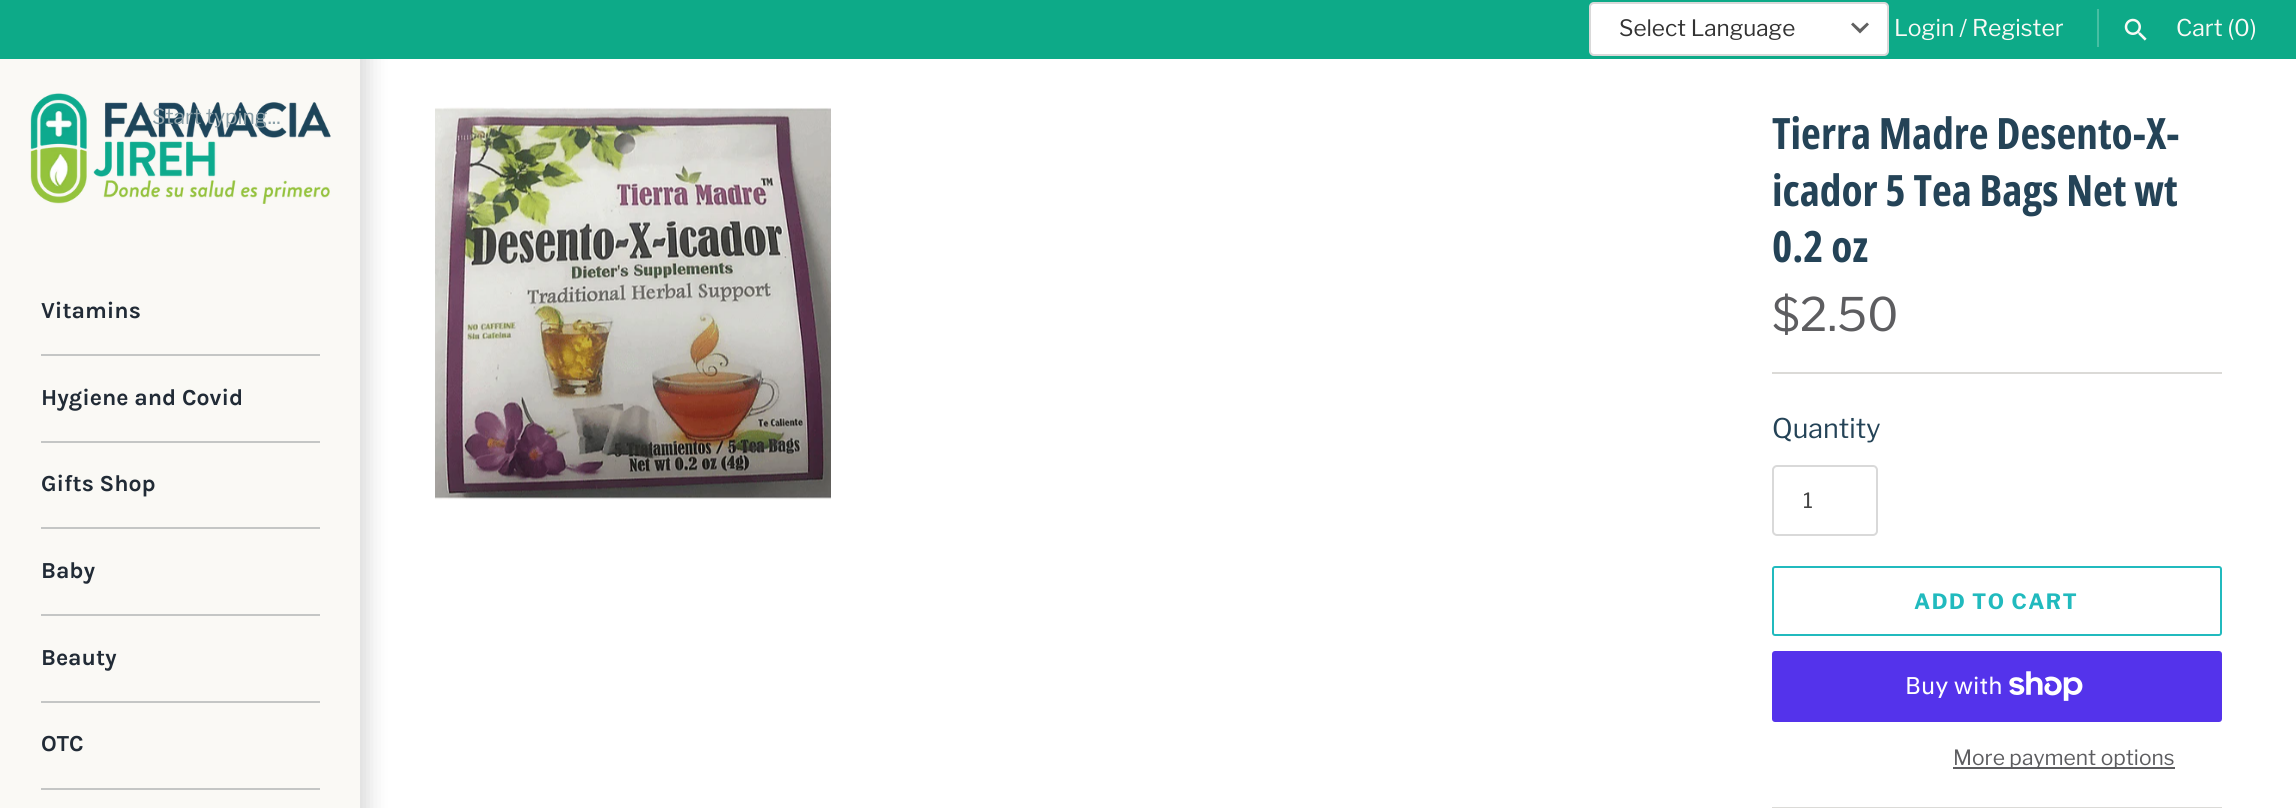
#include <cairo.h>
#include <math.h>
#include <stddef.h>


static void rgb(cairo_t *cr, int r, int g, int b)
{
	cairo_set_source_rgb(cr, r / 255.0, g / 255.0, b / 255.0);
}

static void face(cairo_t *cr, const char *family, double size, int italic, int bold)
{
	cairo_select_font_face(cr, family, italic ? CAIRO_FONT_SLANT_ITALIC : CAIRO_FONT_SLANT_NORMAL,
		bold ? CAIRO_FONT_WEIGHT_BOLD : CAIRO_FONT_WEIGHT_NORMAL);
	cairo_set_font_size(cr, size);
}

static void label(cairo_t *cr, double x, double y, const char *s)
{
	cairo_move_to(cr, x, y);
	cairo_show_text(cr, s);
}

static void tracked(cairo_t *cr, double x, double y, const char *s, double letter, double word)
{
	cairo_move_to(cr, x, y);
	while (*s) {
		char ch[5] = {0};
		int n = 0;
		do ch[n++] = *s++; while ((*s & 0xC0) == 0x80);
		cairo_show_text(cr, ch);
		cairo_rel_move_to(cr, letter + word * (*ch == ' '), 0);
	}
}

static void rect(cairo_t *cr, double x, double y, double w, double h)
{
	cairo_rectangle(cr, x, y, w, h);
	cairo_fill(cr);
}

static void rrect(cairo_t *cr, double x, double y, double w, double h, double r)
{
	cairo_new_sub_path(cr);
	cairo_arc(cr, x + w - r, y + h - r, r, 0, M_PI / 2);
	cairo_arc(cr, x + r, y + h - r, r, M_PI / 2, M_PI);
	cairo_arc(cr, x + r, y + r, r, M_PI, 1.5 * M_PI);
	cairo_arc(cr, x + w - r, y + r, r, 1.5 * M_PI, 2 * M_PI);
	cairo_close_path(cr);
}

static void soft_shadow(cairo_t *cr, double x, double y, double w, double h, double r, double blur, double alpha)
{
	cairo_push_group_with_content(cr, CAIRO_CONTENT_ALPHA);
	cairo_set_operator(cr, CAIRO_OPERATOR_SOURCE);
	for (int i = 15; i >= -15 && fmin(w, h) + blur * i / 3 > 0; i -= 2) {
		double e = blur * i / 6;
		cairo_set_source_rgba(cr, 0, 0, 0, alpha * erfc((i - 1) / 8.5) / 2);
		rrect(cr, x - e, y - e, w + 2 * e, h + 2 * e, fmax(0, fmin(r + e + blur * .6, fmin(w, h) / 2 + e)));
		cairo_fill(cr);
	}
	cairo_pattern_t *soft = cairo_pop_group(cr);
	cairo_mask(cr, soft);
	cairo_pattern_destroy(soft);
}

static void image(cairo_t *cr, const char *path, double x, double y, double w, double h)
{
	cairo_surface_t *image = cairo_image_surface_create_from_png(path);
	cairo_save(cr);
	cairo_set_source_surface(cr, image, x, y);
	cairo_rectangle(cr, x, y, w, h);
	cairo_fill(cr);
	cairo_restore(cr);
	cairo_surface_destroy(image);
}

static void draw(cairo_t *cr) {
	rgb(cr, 255, 255, 255);
	cairo_paint(cr);
	rgb(cr, 0, 0, 0);
	soft_shadow(cr, -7, 51, 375, 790, 0, 11, 0.15);
	rgb(cr, 13, 170, 136);
	rect(cr, 0, 0, 2296, 59);
	rgb(cr, 255, 255, 255);
	rrect(cr, 1589, 2, 300, 54, 5);
	cairo_fill(cr);
	rgb(cr, 97, 97, 97);
	cairo_new_path(cr);
	cairo_move_to(cr, 1853, 22.5);
	cairo_line_to(cr, 1860, 29);
	cairo_line_to(cr, 1867, 22.5);
	cairo_line_to(cr, 1869, 24.5);
	cairo_line_to(cr, 1860, 33.5);
	cairo_line_to(cr, 1851, 24.5);
	cairo_close_path(cr);
	cairo_fill(cr);
	rrect(cr, 1590, 3, 298, 52, 4);
	cairo_set_source_rgba(cr, 0, 0, 0, 0.15);
	cairo_stroke(cr);
	face(cr, "Libre Franklin", 22.5, 0, 0);
	rgb(cr, 51, 51, 51);
	label(cr, 1619, 36, "Select Language");
	face(cr, "Libre Franklin", 23, 0, 0);
	rgb(cr, 250, 249, 245);
	label(cr, 1894, 36, "Login / Register");
	rgb(cr, 72, 190, 163);
	rect(cr, 2097, 9, 2, 38);
	image(cr, "image0.png", 2124, 18, 23, 23);
	rgb(cr, 250, 249, 245);
	label(cr, 2176, 36, "Cart (0)");
	rect(cr, 0, 59, 360, 749);
	image(cr, "image1.png", 30, 93, 301, 111);
	face(cr, "Libre Franklin", 21, 0, 0);
	rgb(cr, 139, 159, 167);
	label(cr, 152, 124, "Start typing...");
	rgb(cr, 196, 198, 197);
	rect(cr, 41, 354, 279, 2);
	face(cr, "Karla", 23, 0, 1);
	rgb(cr, 33, 43, 54);
	label(cr, 41, 318, "Vitamins");
	rgb(cr, 196, 198, 197);
	rect(cr, 41, 441, 279, 2);
	rgb(cr, 33, 43, 54);
	label(cr, 41, 405, "Hygiene and Covid");
	rgb(cr, 196, 198, 197);
	rect(cr, 41, 527, 279, 2);
	rgb(cr, 33, 43, 54);
	label(cr, 41, 491, "Gifts Shop");
	rgb(cr, 196, 198, 197);
	rect(cr, 41, 614, 279, 2);
	rgb(cr, 33, 43, 54);
	label(cr, 41, 578, "Baby");
	rgb(cr, 196, 198, 197);
	rect(cr, 41, 701, 279, 2);
	rgb(cr, 33, 43, 54);
	label(cr, 41, 665, "Beauty");
	rgb(cr, 196, 198, 197);
	rect(cr, 41, 788, 279, 2);
	rgb(cr, 33, 43, 54);
	label(cr, 41, 751, "OTC");
	image(cr, "image2.png", 435, 107, 396, 393);
	face(cr, "Open Sans Condensed", 43.25, 0, 1);
	rgb(cr, 36, 67, 87);
	label(cr, 1772, 149, "Tierra Madre Desento-X-");
	label(cr, 1772, 206, "icador 5 Tea Bags Net wt");
	label(cr, 1772, 262, "0.2 oz");
	face(cr, "Libre Franklin", 46, 0, 0);
	rgb(cr, 93, 93, 96);
	label(cr, 1772, 331, "$2.50");
	rgb(cr, 219, 218, 215);
	rect(cr, 1772, 372, 450, 2);
	face(cr, "Libre Franklin", 27, 0, 0);
	rgb(cr, 36, 67, 87);
	label(cr, 1772, 438, "Quantity");
	rrect(cr, 1773, 466, 104, 69, 4);
	rgb(cr, 217, 217, 217);
	cairo_stroke(cr);
	face(cr, "Libre Franklin", 21, 0, 0);
	rgb(cr, 68, 68, 68);
	label(cr, 1803, 508, "1");
	rrect(cr, 1773, 567, 448, 68, 2);
	rgb(cr, 33, 186, 190);
	cairo_stroke(cr);
	face(cr, "Libre Franklin", 21, 0, 1);
	tracked(cr, 1914, 609, "ADD TO CART", 1.5, 0);
	rgb(cr, 84, 51, 235);
	rrect(cr, 1772, 651, 450, 71, 3);
	cairo_fill(cr);
	face(cr, "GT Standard", 24, 0, 0);
	rgb(cr, 255, 255, 255);
	label(cr, 1905, 694, "Buy with");
	image(cr, "image3.png", 2009, 671, 74, 30);
	rgb(cr, 93, 93, 96);
	rect(cr, 1953, 767, 222, 2);
	face(cr, "Libre Franklin", 21, 0, 0);
	label(cr, 1953, 765, "More payment options");
	rgb(cr, 219, 218, 215);
	rect(cr, 1772, 807, 450, 1);
}

int main(void) {
	cairo_surface_t *surface = cairo_image_surface_create(CAIRO_FORMAT_RGB24, 2296, 808);
	cairo_t *cr = cairo_create(surface);
	cairo_font_options_t *options = cairo_font_options_create();
	cairo_font_options_set_hint_metrics(options, CAIRO_HINT_METRICS_OFF);
	cairo_font_options_set_hint_style(options, CAIRO_HINT_STYLE_NONE);
	cairo_set_font_options(cr, options);
	cairo_set_miter_limit(cr, 4);
	draw(cr);
	cairo_surface_write_to_png(surface, "render.png");
	cairo_font_options_destroy(options);
	cairo_destroy(cr);
	cairo_surface_destroy(surface);
	return 0;
}
